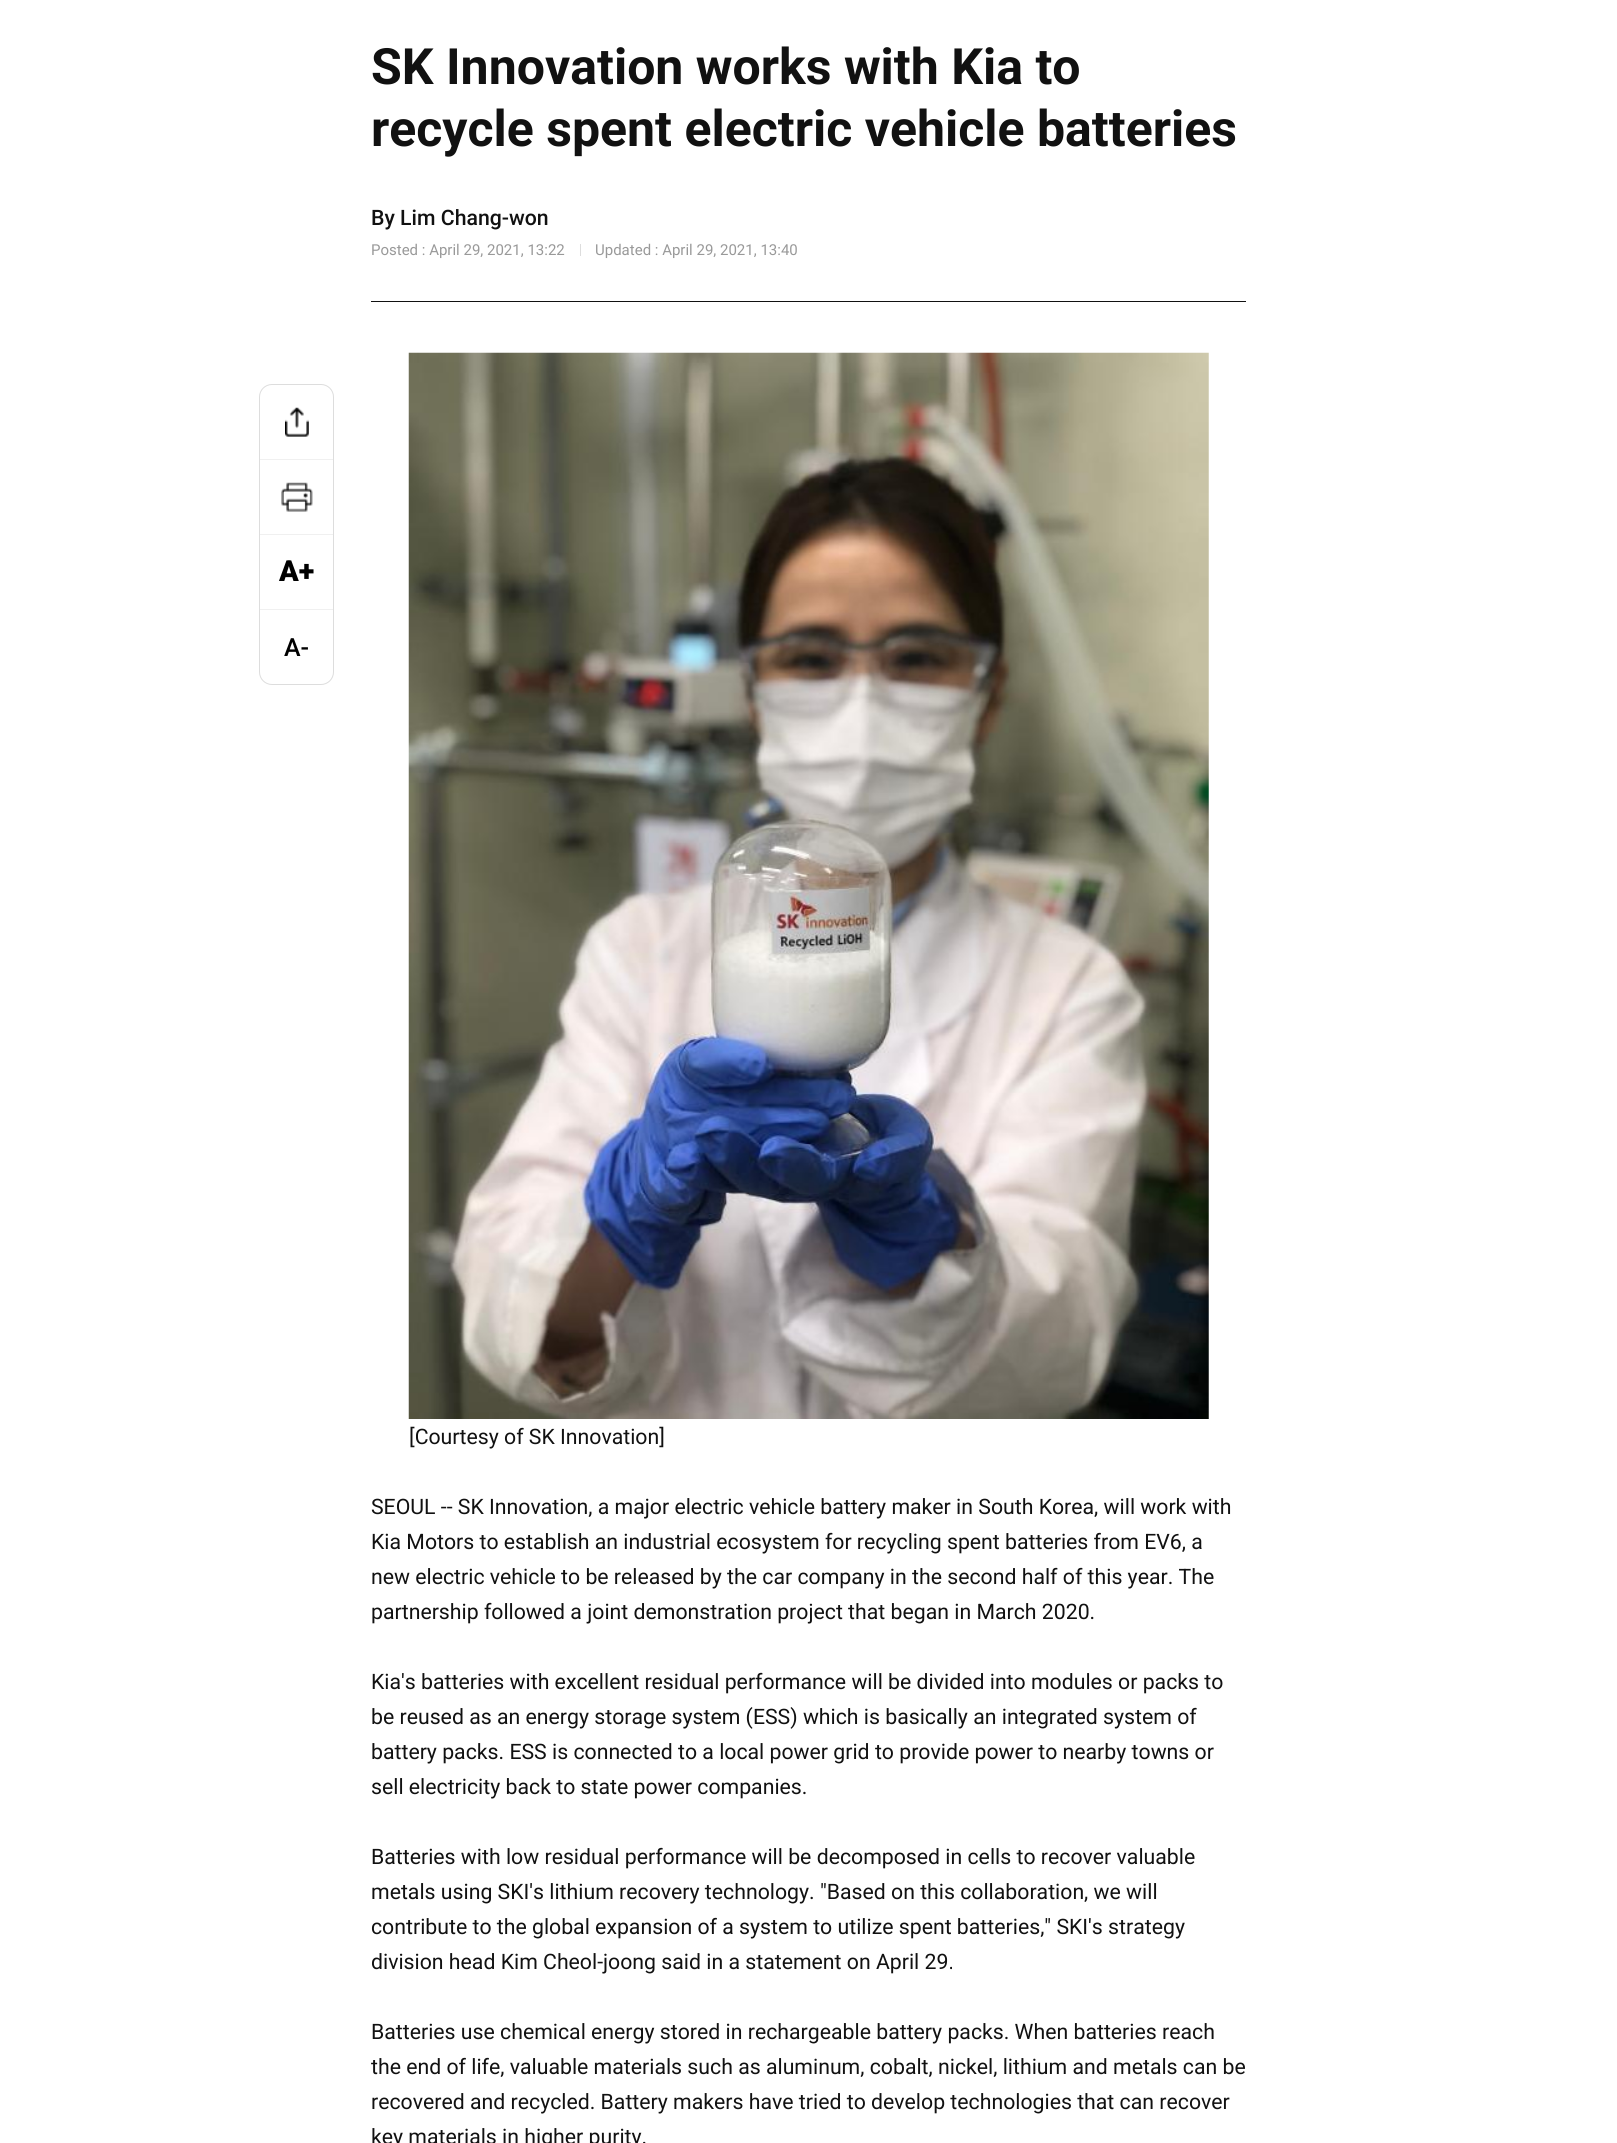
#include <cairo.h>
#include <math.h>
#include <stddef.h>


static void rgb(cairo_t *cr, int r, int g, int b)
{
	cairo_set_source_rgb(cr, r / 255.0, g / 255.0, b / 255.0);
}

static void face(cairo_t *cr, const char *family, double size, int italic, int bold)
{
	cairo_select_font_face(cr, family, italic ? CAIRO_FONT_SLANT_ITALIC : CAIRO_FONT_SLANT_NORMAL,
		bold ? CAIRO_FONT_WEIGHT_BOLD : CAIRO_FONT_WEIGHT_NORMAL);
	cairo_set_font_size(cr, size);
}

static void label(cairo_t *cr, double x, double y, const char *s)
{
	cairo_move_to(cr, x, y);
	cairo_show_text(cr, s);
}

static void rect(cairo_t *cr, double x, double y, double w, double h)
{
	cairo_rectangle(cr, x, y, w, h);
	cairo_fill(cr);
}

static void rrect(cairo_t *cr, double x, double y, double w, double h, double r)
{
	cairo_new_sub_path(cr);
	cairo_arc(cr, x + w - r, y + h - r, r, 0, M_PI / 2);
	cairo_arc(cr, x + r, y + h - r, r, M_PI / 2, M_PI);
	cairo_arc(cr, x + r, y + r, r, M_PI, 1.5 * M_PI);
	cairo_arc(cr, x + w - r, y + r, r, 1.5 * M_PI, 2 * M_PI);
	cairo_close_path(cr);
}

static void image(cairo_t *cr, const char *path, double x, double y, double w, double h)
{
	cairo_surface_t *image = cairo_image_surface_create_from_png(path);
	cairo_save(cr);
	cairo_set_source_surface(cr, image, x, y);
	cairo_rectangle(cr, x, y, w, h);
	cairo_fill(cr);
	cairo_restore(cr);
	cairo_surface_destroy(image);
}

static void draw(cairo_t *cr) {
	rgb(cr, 255, 255, 255);
	cairo_paint(cr);
	rrect(cr, 259.5, 384.5, 74, 300, 12.5);
	rgb(cr, 221, 221, 221);
	cairo_set_line_width(cr, 1);
	cairo_stroke(cr);
	image(cr, "image0.png", 285, 407, 24, 30);
	rgb(cr, 240, 240, 240);
	rect(cr, 260, 459, 73, 1);
	image(cr, "image1.png", 281, 482, 32, 30);
	rect(cr, 260, 534, 73, 1);
	face(cr, "Roboto Black", 29, 0, 0);
	rgb(cr, 0, 0, 0);
	label(cr, 279, 581, "A+");
	rgb(cr, 240, 240, 240);
	rect(cr, 260, 609, 73, 1);
	face(cr, "Roboto Medium", 25, 0, 0);
	rgb(cr, 0, 0, 0);
	label(cr, 284, 656, "A-");
	rgb(cr, 17, 17, 17);
	rect(cr, 371, 301, 875, 1);
	face(cr, "Roboto", 50, 0, 1);
	label(cr, 371, 84, "SK Innovation works with Kia to");
	label(cr, 371, 146, "recycle spent electric vehicle batteries");
	face(cr, "Roboto Medium", 21.25, 0, 0);
	label(cr, 371, 225, "By Lim Chang-won");
	face(cr, "Roboto", 15, 0, 0);
	rgb(cr, 153, 153, 153);
	label(cr, 371, 255, "Posted : April 29, 2021, 13:22");
	rgb(cr, 221, 221, 221);
	rect(cr, 580, 244, 1, 12);
	rgb(cr, 153, 153, 153);
	label(cr, 595, 255, "Updated : April 29, 2021, 13:40");
	image(cr, "image2.png", 408, 352, 801, 1067);
	face(cr, "Roboto", 21.25, 0, 0);
	rgb(cr, 17, 17, 17);
	label(cr, 409, 1444, "[Courtesy of SK Innovation]");
	label(cr, 371, 1514, "SEOUL -- SK Innovation, a major electric vehicle battery maker in South Korea, will work with");
	label(cr, 371, 1549, "Kia Motors to establish an industrial ecosystem for recycling spent batteries from EV6, a");
	label(cr, 371, 1584, "new electric vehicle to be released by the car company in the second half of this year. The");
	label(cr, 371, 1619, "partnership followed a joint demonstration project that began in March 2020.");
	label(cr, 371, 1689, "Kia's batteries with excellent residual performance will be divided into modules or packs to");
	label(cr, 371, 1724, "be reused as an energy storage system (ESS) which is basically an integrated system of");
	label(cr, 371, 1759, "battery packs. ESS is connected to a local power grid to provide power to nearby towns or");
	label(cr, 371, 1794, "sell electricity back to state power companies.");
	label(cr, 371, 1864, "Batteries with low residual performance will be decomposed in cells to recover valuable");
	label(cr, 371, 1899, "metals using SKI's lithium recovery technology. \"Based on this collaboration, we will");
	label(cr, 371, 1934, "contribute to the global expansion of a system to utilize spent batteries,\" SKI's strategy");
	label(cr, 371, 1969, "division head Kim Cheol-joong said in a statement on April 29.");
	label(cr, 371, 2039, "Batteries use chemical energy stored in rechargeable battery packs. When batteries reach");
	label(cr, 371, 2074, "the end of life, valuable materials such as aluminum, cobalt, nickel, lithium and metals can be");
	label(cr, 371, 2109, "recovered and recycled. Battery makers have tried to develop technologies that can recover");
	label(cr, 371, 2144, "key materials in higher purity.");
}

int main(void) {
	cairo_surface_t *surface = cairo_image_surface_create(CAIRO_FORMAT_RGB24, 1617, 2143);
	cairo_t *cr = cairo_create(surface);
	cairo_font_options_t *options = cairo_font_options_create();
	cairo_font_options_set_hint_metrics(options, CAIRO_HINT_METRICS_OFF);
	cairo_font_options_set_hint_style(options, CAIRO_HINT_STYLE_NONE);
	cairo_set_font_options(cr, options);
	cairo_set_miter_limit(cr, 4);
	draw(cr);
	cairo_surface_write_to_png(surface, "render.png");
	cairo_font_options_destroy(options);
	cairo_destroy(cr);
	cairo_surface_destroy(surface);
	return 0;
}
